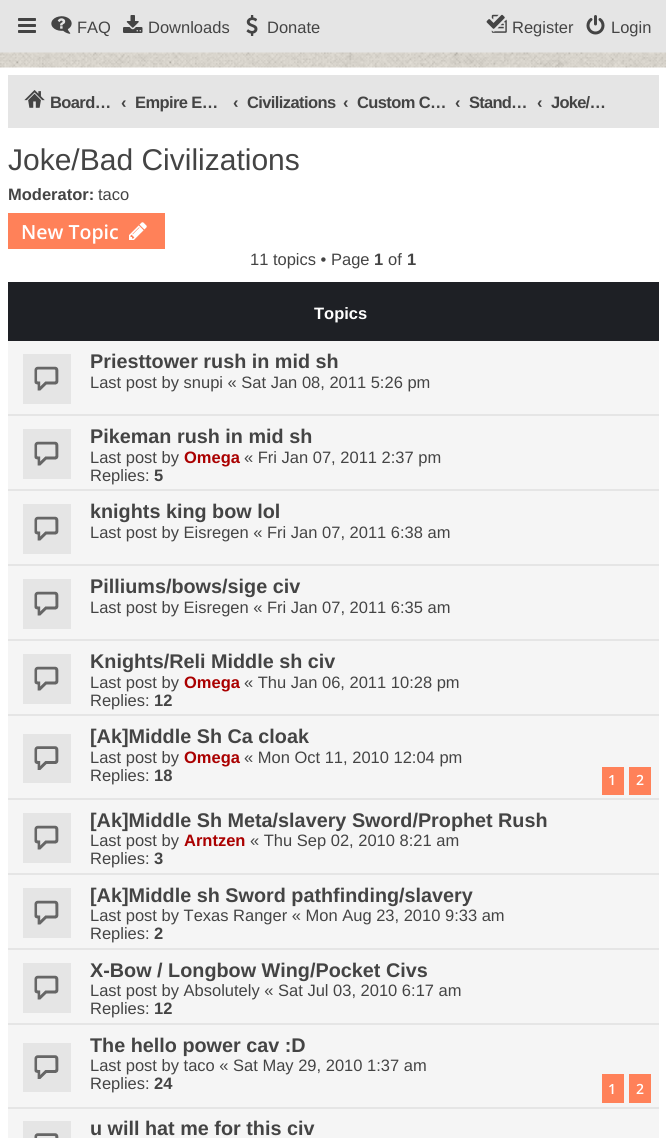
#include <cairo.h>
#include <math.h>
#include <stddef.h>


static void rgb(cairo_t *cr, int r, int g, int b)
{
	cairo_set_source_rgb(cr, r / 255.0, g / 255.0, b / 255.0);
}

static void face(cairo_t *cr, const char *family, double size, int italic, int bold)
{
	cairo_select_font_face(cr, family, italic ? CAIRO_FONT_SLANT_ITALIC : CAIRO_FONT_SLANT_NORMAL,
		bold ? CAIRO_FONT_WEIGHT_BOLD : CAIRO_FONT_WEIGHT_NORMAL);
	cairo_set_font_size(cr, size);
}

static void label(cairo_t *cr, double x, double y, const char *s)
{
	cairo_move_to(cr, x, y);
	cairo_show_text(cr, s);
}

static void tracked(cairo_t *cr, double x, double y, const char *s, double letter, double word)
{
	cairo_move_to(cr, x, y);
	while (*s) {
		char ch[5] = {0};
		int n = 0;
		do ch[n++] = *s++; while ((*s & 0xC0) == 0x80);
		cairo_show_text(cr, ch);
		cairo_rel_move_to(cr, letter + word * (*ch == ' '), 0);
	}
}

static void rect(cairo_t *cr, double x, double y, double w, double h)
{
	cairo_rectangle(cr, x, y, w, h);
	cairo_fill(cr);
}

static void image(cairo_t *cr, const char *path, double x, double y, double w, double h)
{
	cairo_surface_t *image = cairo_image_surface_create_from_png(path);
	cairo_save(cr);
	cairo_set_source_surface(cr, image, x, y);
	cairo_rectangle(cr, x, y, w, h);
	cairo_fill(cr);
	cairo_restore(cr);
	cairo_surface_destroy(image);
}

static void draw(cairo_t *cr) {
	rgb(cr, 255, 255, 255);
	cairo_paint(cr);
	rgb(cr, 229, 229, 229);
	rect(cr, 0, 0, 666, 53);
	image(cr, "image0.png", 18, 18, 18, 15);
	image(cr, "image1.png", 51, 16, 21, 18);
	face(cr, "Liberation Sans", 16.5, 0, 0);
	rgb(cr, 68, 68, 68);
	label(cr, 77, 33, "FAQ");
	image(cr, "image2.png", 123, 15, 20, 18);
	label(cr, 148, 33, "Downloads");
	image(cr, "image3.png", 246, 15, 12, 21);
	label(cr, 267, 33, "Donate");
	image(cr, "image4.png", 486, 14, 21, 19);
	label(cr, 512, 33, "Register");
	image(cr, "image5.png", 586, 15, 19, 20);
	label(cr, 611, 33, "Login");
	image(cr, "image6.png", 0, 52, 666, 16);
	rgb(cr, 229, 229, 229);
	rect(cr, 8, 75, 651, 53);
	image(cr, "image7.png", 24, 90, 21, 18);
	face(cr, "Liberation Sans", 16.5, 0, 1);
	rgb(cr, 68, 68, 68);
	tracked(cr, 50, 108, "Board…", -0.6, 0);
	label(cr, 121, 108, "‹");
	tracked(cr, 135, 108, "Empire E…", -0.6, 0);
	label(cr, 233, 108, "‹");
	tracked(cr, 247, 108, "Civilizations", -0.6, 0);
	label(cr, 343, 108, "‹");
	tracked(cr, 357, 108, "Custom C…", -0.6, 0);
	label(cr, 455, 108, "‹");
	tracked(cr, 469, 108, "Stand…", -0.75, 0);
	label(cr, 537, 108, "‹");
	tracked(cr, 551, 108, "Joke/…", -0.75, 0);
	face(cr, "Liberation Sans", 30, 0, 0);
	label(cr, 8, 170, "Joke/Bad Civilizations");
	face(cr, "Liberation Sans", 16.5, 0, 1);
	label(cr, 8, 200, "Moderator:");
	face(cr, "Liberation Sans", 16.5, 0, 0);
	label(cr, 98, 200, "taco");
	rgb(cr, 255, 129, 89);
	rect(cr, 8, 213, 157, 36);
	face(cr, "Open Sans SemiBold", 19.5, 0, 0);
	rgb(cr, 255, 255, 255);
	label(cr, 21, 239, "New Topic");
	image(cr, "image8.png", 129, 222, 18, 18);
	face(cr, "Liberation Sans", 16.5, 0, 0);
	rgb(cr, 68, 68, 68);
	label(cr, 250, 265, "11 topics • Page");
	face(cr, "Liberation Sans", 16.5, 0, 1);
	label(cr, 374, 265, "1");
	face(cr, "Liberation Sans", 16.5, 0, 0);
	label(cr, 388, 265, "of");
	face(cr, "Liberation Sans", 16.5, 0, 1);
	label(cr, 407, 265, "1");
	rgb(cr, 30, 32, 37);
	rect(cr, 8, 282, 651, 59);
	rgb(cr, 255, 255, 255);
	label(cr, 314, 319, "Topics");
	rgb(cr, 245, 245, 245);
	rect(cr, 8, 341, 651, 73);
	rgb(cr, 229, 229, 229);
	rect(cr, 8, 414, 651, 2);
	rect(cr, 23, 354, 48, 50);
	image(cr, "image9.png", 34, 366, 25, 25);
	face(cr, "Liberation Sans", 19.8, 0, 1);
	rgb(cr, 68, 68, 68);
	label(cr, 90, 368, "Priesttower rush in mid sh");
	face(cr, "Liberation Sans", 16.5, 0, 0);
	label(cr, 90, 388, "Last post by snupi « Sat Jan 08, 2011 5:26 pm");
	rgb(cr, 245, 245, 245);
	rect(cr, 8, 416, 651, 73);
	rgb(cr, 229, 229, 229);
	rect(cr, 8, 489, 651, 2);
	rect(cr, 23, 429, 48, 50);
	image(cr, "image9.png", 34, 441, 25, 25);
	face(cr, "Liberation Sans", 19.8, 0, 1);
	rgb(cr, 68, 68, 68);
	label(cr, 90, 443, "Pikeman rush in mid sh");
	face(cr, "Liberation Sans", 16.5, 0, 0);
	label(cr, 90, 463, "Last post by");
	face(cr, "Liberation Sans", 16.5, 0, 1);
	rgb(cr, 170, 0, 0);
	label(cr, 184, 463, "Omega");
	face(cr, "Liberation Sans", 16.5, 0, 0);
	rgb(cr, 68, 68, 68);
	label(cr, 244, 463, "« Fri Jan 07, 2011 2:37 pm");
	label(cr, 90, 481, "Replies:");
	face(cr, "Liberation Sans", 16.5, 0, 1);
	label(cr, 154, 481, "5");
	rgb(cr, 245, 245, 245);
	rect(cr, 8, 491, 651, 73);
	rgb(cr, 229, 229, 229);
	rect(cr, 8, 564, 651, 2);
	rect(cr, 23, 504, 48, 50);
	image(cr, "image9.png", 34, 516, 25, 25);
	face(cr, "Liberation Sans", 19.8, 0, 1);
	rgb(cr, 68, 68, 68);
	label(cr, 90, 518, "knights king bow lol");
	face(cr, "Liberation Sans", 16.5, 0, 0);
	label(cr, 90, 538, "Last post by Eisregen « Fri Jan 07, 2011 6:38 am");
	rgb(cr, 245, 245, 245);
	rect(cr, 8, 566, 651, 73);
	rgb(cr, 229, 229, 229);
	rect(cr, 8, 639, 651, 2);
	rect(cr, 23, 579, 48, 50);
	image(cr, "image9.png", 34, 591, 25, 25);
	face(cr, "Liberation Sans", 19.8, 0, 1);
	rgb(cr, 68, 68, 68);
	label(cr, 90, 593, "Pilliums/bows/sige civ");
	face(cr, "Liberation Sans", 16.5, 0, 0);
	label(cr, 90, 613, "Last post by Eisregen « Fri Jan 07, 2011 6:35 am");
	rgb(cr, 245, 245, 245);
	rect(cr, 8, 641, 651, 73);
	rgb(cr, 229, 229, 229);
	rect(cr, 8, 714, 651, 2);
	rect(cr, 23, 654, 48, 50);
	image(cr, "image9.png", 34, 666, 25, 25);
	face(cr, "Liberation Sans", 19.8, 0, 1);
	rgb(cr, 68, 68, 68);
	label(cr, 90, 668, "Knights/Reli Middle sh civ");
	face(cr, "Liberation Sans", 16.5, 0, 0);
	label(cr, 90, 688, "Last post by");
	face(cr, "Liberation Sans", 16.5, 0, 1);
	rgb(cr, 170, 0, 0);
	label(cr, 184, 688, "Omega");
	face(cr, "Liberation Sans", 16.5, 0, 0);
	rgb(cr, 68, 68, 68);
	label(cr, 244, 688, "« Thu Jan 06, 2011 10:28 pm");
	label(cr, 90, 706, "Replies:");
	face(cr, "Liberation Sans", 16.5, 0, 1);
	label(cr, 154, 706, "12");
	rgb(cr, 245, 245, 245);
	rect(cr, 8, 716, 651, 82);
	rgb(cr, 229, 229, 229);
	rect(cr, 8, 798, 651, 2);
	rect(cr, 23, 734, 48, 49);
	image(cr, "image10.png", 34, 746, 25, 24);
	face(cr, "Liberation Sans", 19.8, 0, 1);
	rgb(cr, 68, 68, 68);
	label(cr, 90, 743, "[Ak]Middle Sh Ca cloak");
	face(cr, "Liberation Sans", 16.5, 0, 0);
	label(cr, 90, 763, "Last post by");
	face(cr, "Liberation Sans", 16.5, 0, 1);
	rgb(cr, 170, 0, 0);
	label(cr, 184, 763, "Omega");
	face(cr, "Liberation Sans", 16.5, 0, 0);
	rgb(cr, 68, 68, 68);
	label(cr, 244, 763, "« Mon Oct 11, 2010 12:04 pm");
	label(cr, 90, 781, "Replies:");
	face(cr, "Liberation Sans", 16.5, 0, 1);
	label(cr, 154, 781, "18");
	rgb(cr, 255, 129, 89);
	rect(cr, 602, 767, 22, 28);
	face(cr, "Open Sans SemiBold", 14, 0, 0);
	rgb(cr, 255, 255, 255);
	label(cr, 608, 785, "1");
	rgb(cr, 255, 129, 89);
	rect(cr, 629, 767, 22, 28);
	rgb(cr, 255, 255, 255);
	label(cr, 636, 785, "2");
	rgb(cr, 245, 245, 245);
	rect(cr, 8, 800, 651, 73);
	rgb(cr, 229, 229, 229);
	rect(cr, 8, 873, 651, 2);
	rect(cr, 23, 813, 48, 50);
	image(cr, "image9.png", 34, 825, 25, 25);
	face(cr, "Liberation Sans", 19.8, 0, 1);
	rgb(cr, 68, 68, 68);
	label(cr, 90, 827, "[Ak]Middle Sh Meta/slavery Sword/Prophet");
	label(cr, 498, 827, "Rush");
	face(cr, "Liberation Sans", 16.5, 0, 0);
	label(cr, 90, 846, "Last post by");
	face(cr, "Liberation Sans", 16.5, 0, 1);
	rgb(cr, 170, 0, 0);
	label(cr, 184, 846, "Arntzen");
	face(cr, "Liberation Sans", 16.5, 0, 0);
	rgb(cr, 68, 68, 68);
	label(cr, 250, 846, "« Thu Sep 02, 2010 8:21 am");
	label(cr, 90, 864, "Replies:");
	face(cr, "Liberation Sans", 16.5, 0, 1);
	label(cr, 154, 864, "3");
	rgb(cr, 245, 245, 245);
	rect(cr, 8, 875, 651, 73);
	rgb(cr, 229, 229, 229);
	rect(cr, 8, 948, 651, 2);
	rect(cr, 23, 888, 48, 50);
	image(cr, "image9.png", 34, 900, 25, 25);
	face(cr, "Liberation Sans", 19.8, 0, 1);
	rgb(cr, 68, 68, 68);
	label(cr, 90, 902, "[Ak]Middle sh Sword pathfinding/slavery");
	face(cr, "Liberation Sans", 16.5, 0, 0);
	label(cr, 90, 921, "Last post by Texas Ranger « Mon Aug 23, 2010 9:33 am");
	label(cr, 90, 939, "Replies:");
	face(cr, "Liberation Sans", 16.5, 0, 1);
	label(cr, 154, 939, "2");
	rgb(cr, 245, 245, 245);
	rect(cr, 8, 950, 651, 73);
	rgb(cr, 229, 229, 229);
	rect(cr, 8, 1023, 651, 2);
	rect(cr, 23, 963, 48, 50);
	image(cr, "image9.png", 34, 975, 25, 25);
	face(cr, "Liberation Sans", 19.8, 0, 1);
	rgb(cr, 68, 68, 68);
	label(cr, 90, 977, "X-Bow / Longbow Wing/Pocket Civs");
	face(cr, "Liberation Sans", 16.5, 0, 0);
	label(cr, 90, 996, "Last post by Absolutely « Sat Jul 03, 2010 6:17 am");
	label(cr, 90, 1014, "Replies:");
	face(cr, "Liberation Sans", 16.5, 0, 1);
	label(cr, 154, 1014, "12");
	rgb(cr, 245, 245, 245);
	rect(cr, 8, 1025, 651, 82);
	rgb(cr, 229, 229, 229);
	rect(cr, 8, 1107, 651, 2);
	rect(cr, 23, 1043, 48, 49);
	image(cr, "image11.png", 34, 1055, 25, 24);
	face(cr, "Liberation Sans", 19.8, 0, 1);
	rgb(cr, 68, 68, 68);
	label(cr, 90, 1052, "The hello power cav :D");
	face(cr, "Liberation Sans", 16.5, 0, 0);
	label(cr, 90, 1071, "Last post by taco « Sat May 29, 2010 1:37 am");
	label(cr, 90, 1089, "Replies:");
	face(cr, "Liberation Sans", 16.5, 0, 1);
	label(cr, 154, 1089, "24");
	rgb(cr, 255, 129, 89);
	rect(cr, 602, 1074, 22, 29);
	face(cr, "Open Sans SemiBold", 14, 0, 0);
	rgb(cr, 255, 255, 255);
	label(cr, 608, 1094, "1");
	rgb(cr, 255, 129, 89);
	rect(cr, 629, 1074, 22, 29);
	rgb(cr, 255, 255, 255);
	label(cr, 636, 1094, "2");
	rgb(cr, 245, 245, 245);
	rect(cr, 8, 1109, 651, 29);
	rgb(cr, 229, 229, 229);
	rect(cr, 23, 1121, 48, 17);
	image(cr, "image12.png", 34, 1133, 25, 5);
	face(cr, "Liberation Sans", 19.8, 0, 1);
	rgb(cr, 68, 68, 68);
	label(cr, 90, 1135, "u will hat me for this civ");
}

int main(void) {
	cairo_surface_t *surface = cairo_image_surface_create(CAIRO_FORMAT_RGB24, 666, 1138);
	cairo_t *cr = cairo_create(surface);
	cairo_font_options_t *options = cairo_font_options_create();
	cairo_font_options_set_hint_metrics(options, CAIRO_HINT_METRICS_OFF);
	cairo_font_options_set_hint_style(options, CAIRO_HINT_STYLE_NONE);
	cairo_set_font_options(cr, options);
	cairo_set_miter_limit(cr, 4);
	draw(cr);
	cairo_surface_write_to_png(surface, "render.png");
	cairo_font_options_destroy(options);
	cairo_destroy(cr);
	cairo_surface_destroy(surface);
	return 0;
}
